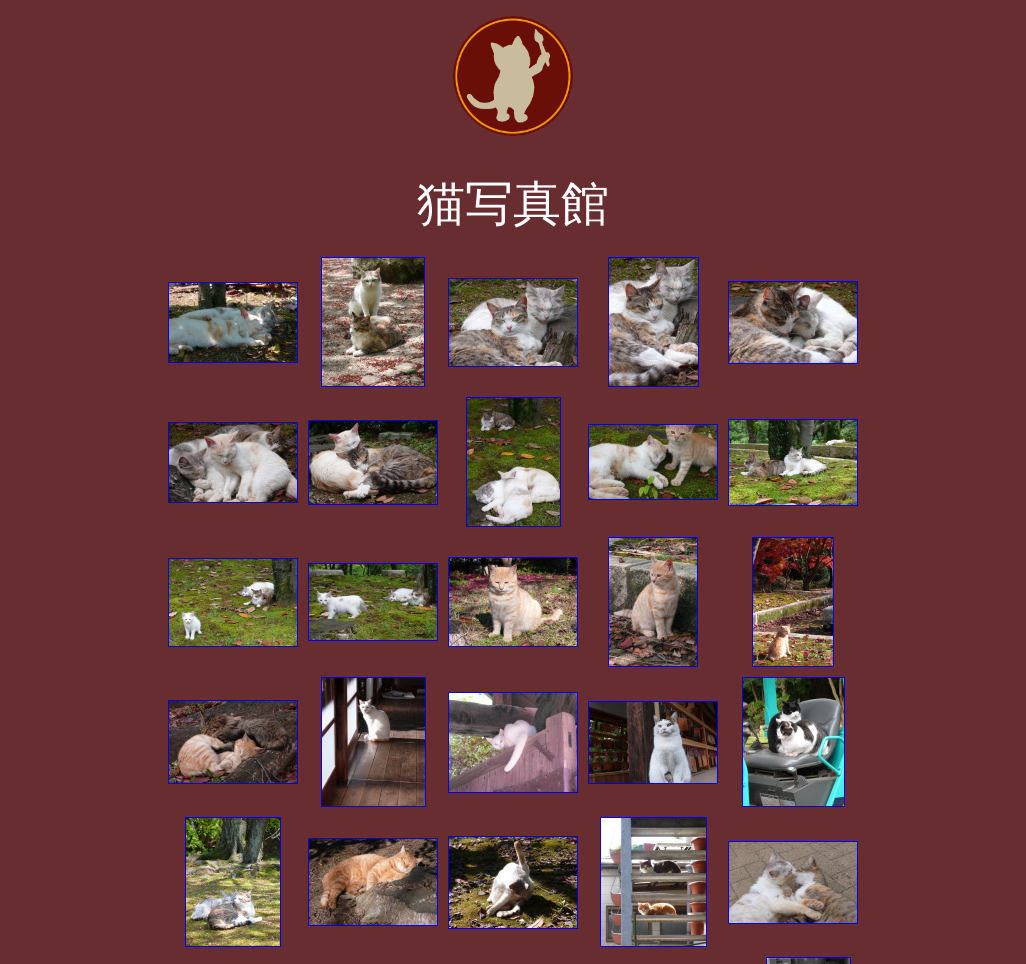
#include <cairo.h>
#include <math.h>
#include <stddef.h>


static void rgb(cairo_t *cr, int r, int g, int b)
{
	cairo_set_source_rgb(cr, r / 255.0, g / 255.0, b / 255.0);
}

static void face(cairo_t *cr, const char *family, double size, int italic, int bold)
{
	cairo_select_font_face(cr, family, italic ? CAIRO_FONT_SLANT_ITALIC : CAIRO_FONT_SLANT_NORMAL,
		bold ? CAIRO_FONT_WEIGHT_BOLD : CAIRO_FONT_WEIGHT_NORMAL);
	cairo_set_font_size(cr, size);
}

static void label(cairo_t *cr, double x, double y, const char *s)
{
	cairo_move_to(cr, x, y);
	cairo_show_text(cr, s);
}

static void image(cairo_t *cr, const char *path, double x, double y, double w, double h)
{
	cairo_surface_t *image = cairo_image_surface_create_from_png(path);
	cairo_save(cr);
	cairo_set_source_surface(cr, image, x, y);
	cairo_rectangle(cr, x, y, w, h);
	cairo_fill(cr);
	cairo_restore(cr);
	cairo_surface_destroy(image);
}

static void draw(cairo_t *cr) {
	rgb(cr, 103, 45, 49);
	cairo_paint(cr);
	image(cr, "image0.png", 453, 16, 120, 120);
	face(cr, "WenQuanYi Zen Hei Medium", 48, 0, 0);
	rgb(cr, 255, 255, 255);
	label(cr, 417, 220, "猫写真館");
	cairo_rectangle(cr, 168.5, 282.5, 129, 80);
	rgb(cr, 0, 0, 238);
	cairo_set_line_width(cr, 1);
	cairo_stroke(cr);
	image(cr, "image1.png", 169, 283, 128, 79);
	cairo_rectangle(cr, 321.5, 257.5, 103, 129);
	cairo_stroke(cr);
	image(cr, "image2.png", 322, 258, 102, 128);
	cairo_rectangle(cr, 448.5, 278.5, 129, 88);
	cairo_stroke(cr);
	image(cr, "image3.png", 449, 279, 128, 87);
	cairo_rectangle(cr, 608.5, 257.5, 90, 129);
	cairo_stroke(cr);
	image(cr, "image4.png", 609, 258, 89, 128);
	cairo_rectangle(cr, 728.5, 281.5, 129, 82);
	cairo_stroke(cr);
	image(cr, "image5.png", 729, 282, 128, 81);
	cairo_rectangle(cr, 168.5, 422.5, 129, 80);
	cairo_stroke(cr);
	image(cr, "image6.png", 169, 423, 128, 79);
	cairo_rectangle(cr, 308.5, 420.5, 129, 84);
	cairo_stroke(cr);
	image(cr, "image7.png", 309, 421, 128, 83);
	cairo_rectangle(cr, 466.5, 397.5, 94, 129);
	cairo_stroke(cr);
	image(cr, "image8.png", 467, 398, 93, 128);
	cairo_rectangle(cr, 588.5, 424.5, 129, 75);
	cairo_stroke(cr);
	image(cr, "image9.png", 589, 425, 128, 74);
	cairo_rectangle(cr, 728.5, 419.5, 129, 86);
	cairo_stroke(cr);
	image(cr, "image10.png", 729, 420, 128, 85);
	cairo_rectangle(cr, 168.5, 558.5, 129, 88);
	cairo_stroke(cr);
	image(cr, "image11.png", 169, 559, 128, 87);
	cairo_rectangle(cr, 308.5, 563.5, 129, 77);
	cairo_stroke(cr);
	image(cr, "image12.png", 309, 564, 128, 76);
	cairo_rectangle(cr, 448.5, 557.5, 129, 89);
	cairo_stroke(cr);
	image(cr, "image13.png", 449, 558, 128, 88);
	cairo_rectangle(cr, 608.5, 537.5, 89, 129);
	cairo_stroke(cr);
	image(cr, "image14.png", 609, 538, 88, 128);
	cairo_rectangle(cr, 752.5, 537.5, 81, 129);
	cairo_stroke(cr);
	image(cr, "image15.png", 753, 538, 80, 128);
	cairo_rectangle(cr, 168.5, 700.5, 129, 83);
	cairo_stroke(cr);
	image(cr, "image16.png", 169, 701, 128, 82);
	cairo_rectangle(cr, 321.5, 677.5, 104, 129);
	cairo_stroke(cr);
	image(cr, "image17.png", 322, 678, 103, 128);
	cairo_rectangle(cr, 448.5, 692.5, 129, 100);
	cairo_stroke(cr);
	image(cr, "image18.png", 449, 693, 128, 99);
	cairo_rectangle(cr, 588.5, 701.5, 129, 82);
	cairo_stroke(cr);
	image(cr, "image19.png", 589, 702, 128, 81);
	cairo_rectangle(cr, 742.5, 677.5, 102, 129);
	cairo_stroke(cr);
	image(cr, "image20.png", 743, 678, 101, 128);
	cairo_rectangle(cr, 185.5, 817.5, 95, 129);
	cairo_stroke(cr);
	image(cr, "image21.png", 186, 818, 94, 128);
	cairo_rectangle(cr, 308.5, 838.5, 129, 87);
	cairo_stroke(cr);
	image(cr, "image22.png", 309, 839, 128, 86);
	cairo_rectangle(cr, 448.5, 836.5, 129, 92);
	cairo_stroke(cr);
	image(cr, "image23.png", 449, 837, 128, 91);
	cairo_rectangle(cr, 600.5, 817.5, 106, 129);
	cairo_stroke(cr);
	image(cr, "image24.png", 601, 818, 105, 128);
	cairo_rectangle(cr, 728.5, 841.5, 129, 82);
	cairo_stroke(cr);
	image(cr, "image25.png", 729, 842, 128, 81);
	cairo_rectangle(cr, 766.5, 957.5, 84, 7);
	cairo_stroke(cr);
	image(cr, "image26.png", 767, 958, 83, 6);
}

int main(void) {
	cairo_surface_t *surface = cairo_image_surface_create(CAIRO_FORMAT_RGB24, 1026, 964);
	cairo_t *cr = cairo_create(surface);
	cairo_font_options_t *options = cairo_font_options_create();
	cairo_font_options_set_hint_metrics(options, CAIRO_HINT_METRICS_OFF);
	cairo_font_options_set_hint_style(options, CAIRO_HINT_STYLE_NONE);
	cairo_set_font_options(cr, options);
	cairo_set_miter_limit(cr, 4);
	draw(cr);
	cairo_surface_write_to_png(surface, "render.png");
	cairo_font_options_destroy(options);
	cairo_destroy(cr);
	cairo_surface_destroy(surface);
	return 0;
}
